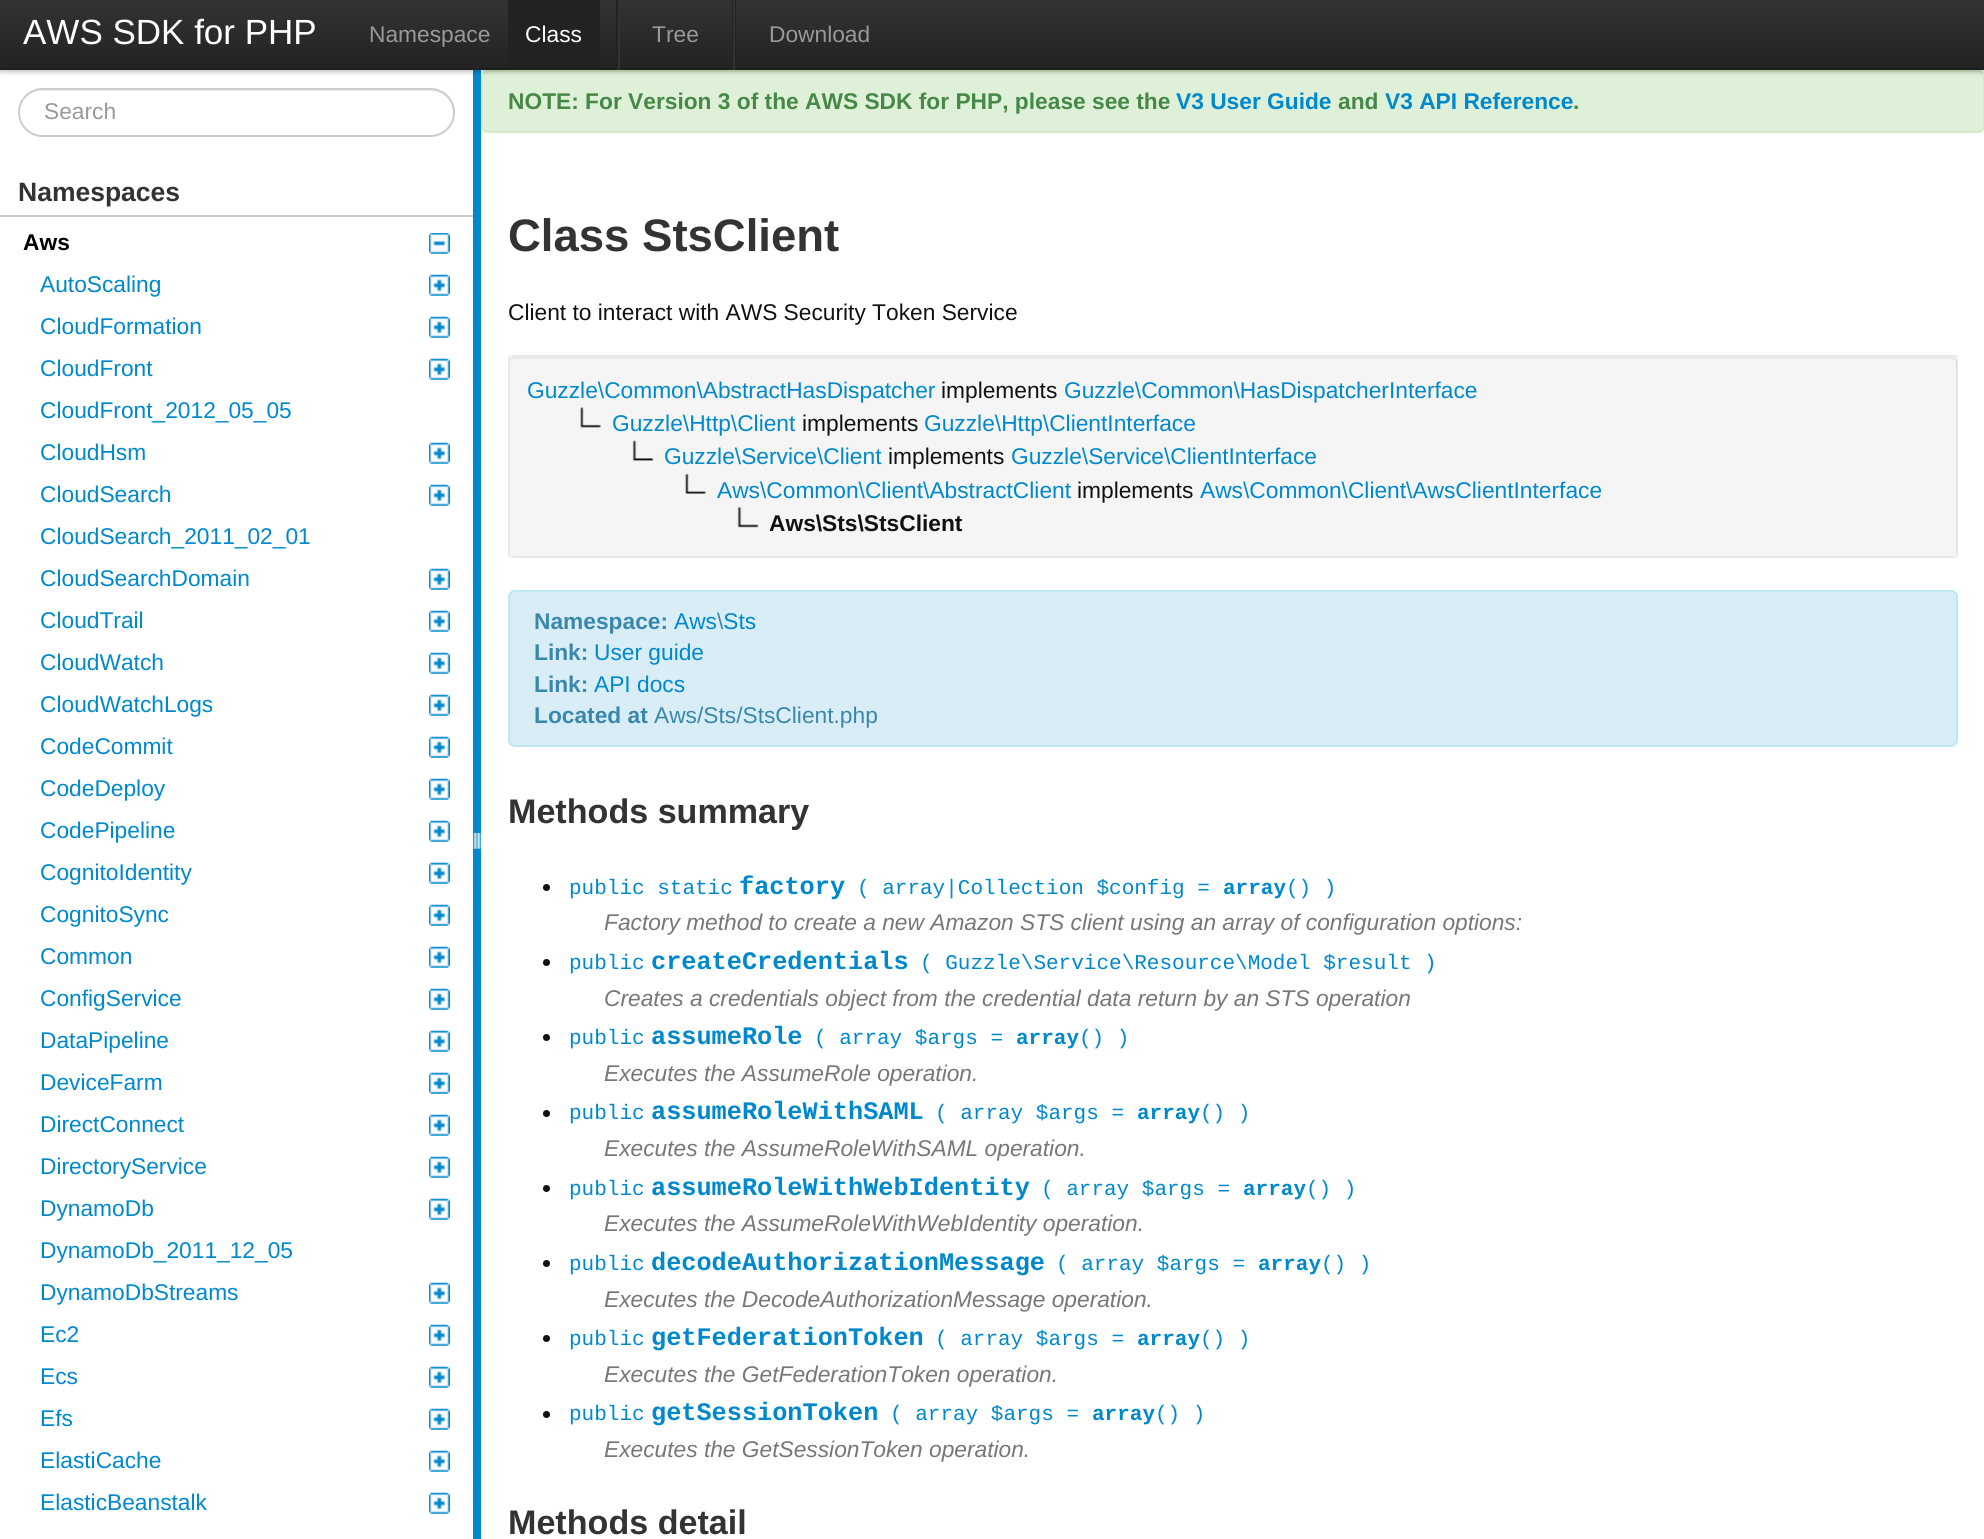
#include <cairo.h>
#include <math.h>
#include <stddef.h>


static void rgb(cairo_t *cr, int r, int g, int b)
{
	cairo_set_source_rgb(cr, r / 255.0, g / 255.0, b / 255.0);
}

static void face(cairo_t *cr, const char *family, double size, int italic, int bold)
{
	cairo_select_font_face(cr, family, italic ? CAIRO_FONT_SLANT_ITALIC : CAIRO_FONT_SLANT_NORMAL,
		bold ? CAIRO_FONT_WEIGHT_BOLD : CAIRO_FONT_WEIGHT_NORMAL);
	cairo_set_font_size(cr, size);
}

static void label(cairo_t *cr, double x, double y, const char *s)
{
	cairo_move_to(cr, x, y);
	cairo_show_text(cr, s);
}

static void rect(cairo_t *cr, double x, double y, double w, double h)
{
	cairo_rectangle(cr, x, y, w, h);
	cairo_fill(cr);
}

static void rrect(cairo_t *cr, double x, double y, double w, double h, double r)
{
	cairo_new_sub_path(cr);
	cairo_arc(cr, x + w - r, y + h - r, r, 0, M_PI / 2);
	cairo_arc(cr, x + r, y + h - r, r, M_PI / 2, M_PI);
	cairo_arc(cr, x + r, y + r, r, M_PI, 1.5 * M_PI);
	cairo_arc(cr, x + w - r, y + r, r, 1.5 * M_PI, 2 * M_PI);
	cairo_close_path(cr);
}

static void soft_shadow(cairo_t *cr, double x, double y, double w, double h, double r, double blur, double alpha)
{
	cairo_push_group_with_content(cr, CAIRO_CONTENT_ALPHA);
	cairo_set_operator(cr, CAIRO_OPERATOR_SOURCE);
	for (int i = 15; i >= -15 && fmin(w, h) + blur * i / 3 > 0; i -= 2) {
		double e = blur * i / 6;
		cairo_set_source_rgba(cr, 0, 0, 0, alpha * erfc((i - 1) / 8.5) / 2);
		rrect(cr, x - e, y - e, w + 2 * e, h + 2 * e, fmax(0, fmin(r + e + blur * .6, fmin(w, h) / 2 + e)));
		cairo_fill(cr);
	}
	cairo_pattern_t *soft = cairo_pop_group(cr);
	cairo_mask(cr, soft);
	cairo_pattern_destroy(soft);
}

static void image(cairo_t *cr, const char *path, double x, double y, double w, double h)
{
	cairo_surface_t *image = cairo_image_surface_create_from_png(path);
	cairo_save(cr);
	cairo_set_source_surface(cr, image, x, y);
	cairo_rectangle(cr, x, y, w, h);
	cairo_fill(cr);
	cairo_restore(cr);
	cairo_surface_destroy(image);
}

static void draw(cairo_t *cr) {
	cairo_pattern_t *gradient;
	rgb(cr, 255, 255, 255);
	cairo_paint(cr);
	rgb(cr, 0, 136, 204);
	rect(cr, 473, 70, 8, 1469);
	rgb(cr, 223, 240, 216);
	rrect(cr, 482, 71, 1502, 61, 6);
	cairo_fill_preserve(cr);
	rgb(cr, 214, 233, 198);
	cairo_stroke(cr);
	rgb(cr, 0, 0, 0);
	soft_shadow(cr, 0, 2, 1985, 70, 0, 2.5, 0.25);
	gradient = cairo_pattern_create_linear(992, 0, 992, 70);
	cairo_pattern_add_color_stop_rgba(gradient, 0, 0.2, 0.2, 0.2, 1);
	cairo_pattern_add_color_stop_rgba(gradient, 1, 0.133, 0.133, 0.133, 1);
	cairo_set_source(cr, gradient);
	cairo_pattern_destroy(gradient);
	rect(cr, 0, 0, 1984, 68);
	rgb(cr, 31, 31, 31);
	rect(cr, 0, 68, 1984, 2);
	face(cr, "Liberation Sans", 35, 0, 0);
	rgb(cr, 255, 255, 255);
	label(cr, 23, 44, "AWS SDK for PHP");
	face(cr, "Liberation Sans", 22.75, 0, 0);
	rgb(cr, 153, 153, 153);
	label(cr, 369, 42, "Namespace");
	rgb(cr, 34, 34, 34);
	rect(cr, 508, 0, 92, 70);
	rgb(cr, 255, 255, 255);
	label(cr, 525, 42, "Class");
	rgb(cr, 34, 34, 34);
	rect(cr, 616, 0, 2, 70);
	rgb(cr, 51, 51, 51);
	rect(cr, 618, 10, 2, 60);
	rgb(cr, 153, 153, 153);
	label(cr, 652, 42, "Tree");
	rgb(cr, 34, 34, 34);
	rect(cr, 732, 0, 4, 70);
	rgb(cr, 51, 51, 51);
	rect(cr, 733, 0, 2, 70);
	rgb(cr, 153, 153, 153);
	label(cr, 769, 42, "Download");
	rgb(cr, 236, 236, 236);
	cairo_new_path(cr);
	cairo_move_to(cr, 42, 91);
	cairo_line_to(cr, 430, 91);
	cairo_curve_to(cr, 443, 91, 452, 100, 453, 113);
	cairo_curve_to(cr, 454, 100, 443, 89, 430, 89);
	cairo_line_to(cr, 42, 89);
	cairo_curve_to(cr, 29, 89, 18, 100, 19, 113);
	cairo_curve_to(cr, 20, 100, 29, 91, 42, 91);
	cairo_close_path(cr);
	cairo_fill(cr);
	rrect(cr, 19, 89, 435, 47, 23.5);
	rgb(cr, 204, 204, 204);
	cairo_stroke(cr);
	rgb(cr, 153, 153, 153);
	label(cr, 44, 119, "Search");
	rgb(cr, 204, 204, 204);
	rect(cr, 0, 215, 473, 2);
	face(cr, "Liberation Sans", 26.5, 0, 1);
	rgb(cr, 51, 51, 51);
	label(cr, 18, 201, "Namespaces");
	face(cr, "Liberation Sans", 22.75, 0, 1);
	rgb(cr, 0, 0, 0);
	label(cr, 23, 250, "Aws");
	image(cr, "image0.png", 429, 233, 21, 21);
	face(cr, "Liberation Sans", 22.75, 0, 0);
	rgb(cr, 0, 136, 204);
	label(cr, 40, 292, "AutoScaling");
	image(cr, "image1.png", 429, 274, 21, 22);
	label(cr, 40, 334, "CloudFormation");
	image(cr, "image1.png", 429, 316, 21, 22);
	label(cr, 40, 376, "CloudFront");
	image(cr, "image1.png", 429, 358, 21, 22);
	label(cr, 40, 418, "CloudFront_2012_05_05");
	label(cr, 40, 460, "CloudHsm");
	image(cr, "image1.png", 429, 442, 21, 22);
	label(cr, 40, 502, "CloudSearch");
	image(cr, "image1.png", 429, 484, 21, 22);
	label(cr, 40, 544, "CloudSearch_2011_02_01");
	label(cr, 40, 586, "CloudSearchDomain");
	image(cr, "image1.png", 429, 568, 21, 22);
	label(cr, 40, 628, "CloudTrail");
	image(cr, "image1.png", 429, 610, 21, 22);
	label(cr, 40, 670, "CloudWatch");
	image(cr, "image1.png", 429, 652, 21, 22);
	label(cr, 40, 712, "CloudWatchLogs");
	image(cr, "image1.png", 429, 694, 21, 22);
	label(cr, 40, 754, "CodeCommit");
	image(cr, "image1.png", 429, 736, 21, 22);
	label(cr, 40, 796, "CodeDeploy");
	image(cr, "image1.png", 429, 778, 21, 22);
	label(cr, 40, 838, "CodePipeline");
	image(cr, "image1.png", 429, 820, 21, 22);
	label(cr, 40, 880, "CognitoIdentity");
	image(cr, "image1.png", 429, 862, 21, 22);
	label(cr, 40, 922, "CognitoSync");
	image(cr, "image1.png", 429, 904, 21, 22);
	label(cr, 40, 964, "Common");
	image(cr, "image1.png", 429, 946, 21, 22);
	label(cr, 40, 1006, "ConfigService");
	image(cr, "image1.png", 429, 988, 21, 22);
	label(cr, 40, 1048, "DataPipeline");
	image(cr, "image1.png", 429, 1030, 21, 22);
	label(cr, 40, 1090, "DeviceFarm");
	image(cr, "image1.png", 429, 1072, 21, 22);
	label(cr, 40, 1132, "DirectConnect");
	image(cr, "image1.png", 429, 1114, 21, 22);
	label(cr, 40, 1174, "DirectoryService");
	image(cr, "image1.png", 429, 1156, 21, 22);
	label(cr, 40, 1216, "DynamoDb");
	image(cr, "image1.png", 429, 1198, 21, 22);
	label(cr, 40, 1258, "DynamoDb_2011_12_05");
	label(cr, 40, 1300, "DynamoDbStreams");
	image(cr, "image1.png", 429, 1282, 21, 22);
	label(cr, 40, 1342, "Ec2");
	image(cr, "image1.png", 429, 1324, 21, 22);
	label(cr, 40, 1384, "Ecs");
	image(cr, "image1.png", 429, 1366, 21, 22);
	label(cr, 40, 1426, "Efs");
	image(cr, "image1.png", 429, 1408, 21, 22);
	label(cr, 40, 1468, "ElastiCache");
	image(cr, "image1.png", 429, 1450, 21, 22);
	label(cr, 40, 1510, "ElasticBeanstalk");
	image(cr, "image1.png", 429, 1492, 21, 22);
	image(cr, "image2.png", 473, 833, 8, 16);
	face(cr, "Liberation Sans", 22.75, 0, 1);
	rgb(cr, 70, 136, 71);
	label(cr, 508, 109, "NOTE: For Version 3 of the AWS SDK for PHP, please see the");
	rgb(cr, 0, 136, 204);
	label(cr, 1176, 109, "V3 User Guide");
	rgb(cr, 70, 136, 71);
	label(cr, 1338, 109, "and");
	rgb(cr, 0, 136, 204);
	label(cr, 1385, 109, "V3 API Reference");
	rgb(cr, 70, 136, 71);
	label(cr, 1573, 109, ".");
	face(cr, "Liberation Sans", 45.5, 0, 1);
	rgb(cr, 51, 51, 51);
	label(cr, 508, 251, "Class StsClient");
	face(cr, "Liberation Sans", 22.75, 0, 0);
	rgb(cr, 17, 17, 17);
	label(cr, 508, 320, "Client to interact with AWS Security Token Service");
	rgb(cr, 245, 245, 245);
	rrect(cr, 508, 355, 1450, 203, 7);
	cairo_fill(cr);
	rgb(cr, 233, 233, 233);
	cairo_new_path(cr);
	cairo_move_to(cr, 514, 359);
	cairo_line_to(cr, 1951, 359);
	cairo_curve_to(cr, 1954, 359, 1956, 361, 1956, 364);
	cairo_line_to(cr, 1956, 553);
	cairo_line_to(cr, 1955, 556);
	cairo_curve_to(cr, 1956, 555, 1957, 553, 1957, 552);
	cairo_line_to(cr, 1957, 362);
	cairo_curve_to(cr, 1957, 359, 1955, 357, 1952, 357);
	cairo_line_to(cr, 514, 357);
	cairo_curve_to(cr, 511, 357, 509, 359, 509, 362);
	cairo_line_to(cr, 509, 364);
	cairo_curve_to(cr, 509, 361, 512, 359, 514, 359);
	cairo_close_path(cr);
	cairo_fill(cr);
	cairo_rectangle(cr, 509, 356, 1448, 201);
	cairo_set_source_rgba(cr, 0, 0, 0, 0.05);
	cairo_stroke(cr);
	rgb(cr, 0, 136, 204);
	label(cr, 527, 398, "Guzzle\\Common\\AbstractHasDispatcher");
	rgb(cr, 17, 17, 17);
	label(cr, 941, 398, "implements");
	rgb(cr, 0, 136, 204);
	label(cr, 1064, 398, "Guzzle\\Common\\HasDispatcherInterface");
	image(cr, "image3.png", 580, 407, 22, 21);
	label(cr, 612, 431, "Guzzle\\Http\\Client");
	rgb(cr, 17, 17, 17);
	label(cr, 802, 431, "implements");
	rgb(cr, 0, 136, 204);
	label(cr, 924, 431, "Guzzle\\Http\\ClientInterface");
	image(cr, "image4.png", 632, 440, 22, 21);
	label(cr, 664, 464, "Guzzle\\Service\\Client");
	rgb(cr, 17, 17, 17);
	label(cr, 888, 464, "implements");
	rgb(cr, 0, 136, 204);
	label(cr, 1011, 464, "Guzzle\\Service\\ClientInterface");
	image(cr, "image5.png", 685, 473, 22, 21);
	label(cr, 717, 498, "Aws\\Common\\Client\\AbstractClient");
	rgb(cr, 17, 17, 17);
	label(cr, 1077, 498, "implements");
	rgb(cr, 0, 136, 204);
	label(cr, 1200, 498, "Aws\\Common\\Client\\AwsClientInterface");
	image(cr, "image6.png", 737, 507, 22, 21);
	face(cr, "Liberation Sans", 22.75, 0, 1);
	rgb(cr, 17, 17, 17);
	label(cr, 769, 531, "Aws\\Sts\\StsClient");
	rgb(cr, 217, 237, 247);
	rrect(cr, 509, 591, 1448, 155, 6);
	cairo_fill_preserve(cr);
	rgb(cr, 188, 232, 241);
	cairo_stroke(cr);
	rgb(cr, 58, 135, 173);
	label(cr, 534, 629, "Namespace:");
	face(cr, "Liberation Sans", 22.75, 0, 0);
	rgb(cr, 0, 136, 204);
	label(cr, 674, 629, "Aws Sts");
	rgb(cr, 58, 135, 173);
	label(cr, 717, 629, "\\");
	face(cr, "Liberation Sans", 22.75, 0, 1);
	label(cr, 534, 660, "Link:");
	face(cr, "Liberation Sans", 22.75, 0, 0);
	rgb(cr, 0, 136, 204);
	label(cr, 594, 660, "User guide");
	face(cr, "Liberation Sans", 22.75, 0, 1);
	rgb(cr, 58, 135, 173);
	label(cr, 534, 692, "Link:");
	face(cr, "Liberation Sans", 22.75, 0, 0);
	rgb(cr, 0, 136, 204);
	label(cr, 594, 692, "API docs");
	face(cr, "Liberation Sans", 22.75, 0, 1);
	rgb(cr, 58, 135, 173);
	label(cr, 534, 723, "Located at");
	face(cr, "Liberation Sans", 22.75, 0, 0);
	label(cr, 654, 723, "Aws/Sts/StsClient.php");
	face(cr, "Liberation Sans", 34.1, 0, 1);
	rgb(cr, 51, 51, 51);
	label(cr, 508, 823, "Methods summary");
	rgb(cr, 17, 17, 17);
	cairo_new_path(cr);
	cairo_arc(cr, 546.5, 887.5, 3.5, 0, 2 * M_PI);
	cairo_fill(cr);
	face(cr, "Liberation Mono", 21, 0, 0);
	rgb(cr, 0, 136, 204);
	label(cr, 569, 894, "public static");
	face(cr, "Liberation Mono", 25.25, 0, 1);
	label(cr, 739, 894, "factory");
	face(cr, "Liberation Mono", 21, 0, 0);
	label(cr, 857, 894, "( array|Collection $config =");
	face(cr, "Liberation Mono", 21, 0, 1);
	label(cr, 1223, 894, "array");
	face(cr, "Liberation Mono", 21, 0, 0);
	label(cr, 1286, 894, "() )");
	face(cr, "Liberation Sans", 22.75, 1, 0);
	rgb(cr, 119, 119, 119);
	label(cr, 604, 930, "Factory method to create a new Amazon STS client using an array of configuration options:");
	rgb(cr, 17, 17, 17);
	cairo_new_path(cr);
	cairo_arc(cr, 546.5, 962.5, 3.5, 0, 2 * M_PI);
	cairo_fill(cr);
	face(cr, "Liberation Mono", 21, 0, 0);
	rgb(cr, 0, 136, 204);
	label(cr, 569, 969, "public");
	face(cr, "Liberation Mono", 25.25, 0, 1);
	label(cr, 651, 969, "createCredentials");
	face(cr, "Liberation Mono", 21, 0, 0);
	label(cr, 920, 969, "( Guzzle\\Service\\Resource\\Model $result )");
	face(cr, "Liberation Sans", 22.75, 1, 0);
	rgb(cr, 119, 119, 119);
	label(cr, 604, 1006, "Creates a credentials object from the credential data return by an STS operation");
	rgb(cr, 17, 17, 17);
	cairo_new_path(cr);
	cairo_arc(cr, 546.5, 1037.5, 3.5, 0, 2 * M_PI);
	cairo_fill(cr);
	face(cr, "Liberation Mono", 21, 0, 0);
	rgb(cr, 0, 136, 204);
	label(cr, 569, 1044, "public");
	face(cr, "Liberation Mono", 25.25, 0, 1);
	label(cr, 651, 1044, "assumeRole");
	face(cr, "Liberation Mono", 21, 0, 0);
	label(cr, 814, 1044, "( array $args =");
	face(cr, "Liberation Mono", 21, 0, 1);
	label(cr, 1016, 1044, "array");
	face(cr, "Liberation Mono", 21, 0, 0);
	label(cr, 1079, 1044, "() )");
	face(cr, "Liberation Sans", 22.75, 1, 0);
	rgb(cr, 119, 119, 119);
	label(cr, 604, 1081, "Executes the AssumeRole operation.");
	rgb(cr, 17, 17, 17);
	cairo_new_path(cr);
	cairo_arc(cr, 546.5, 1113.5, 3.5, 0, 2 * M_PI);
	cairo_fill(cr);
	face(cr, "Liberation Mono", 21, 0, 0);
	rgb(cr, 0, 136, 204);
	label(cr, 569, 1119, "public");
	face(cr, "Liberation Mono", 25.25, 0, 1);
	label(cr, 651, 1119, "assumeRoleWithSAML");
	face(cr, "Liberation Mono", 21, 0, 0);
	label(cr, 935, 1119, "( array $args =");
	face(cr, "Liberation Mono", 21, 0, 1);
	label(cr, 1137, 1119, "array");
	face(cr, "Liberation Mono", 21, 0, 0);
	label(cr, 1200, 1119, "() )");
	face(cr, "Liberation Sans", 22.75, 1, 0);
	rgb(cr, 119, 119, 119);
	label(cr, 604, 1156, "Executes the AssumeRoleWithSAML operation.");
	rgb(cr, 17, 17, 17);
	cairo_new_path(cr);
	cairo_arc(cr, 546.5, 1188.5, 3.5, 0, 2 * M_PI);
	cairo_fill(cr);
	face(cr, "Liberation Mono", 21, 0, 0);
	rgb(cr, 0, 136, 204);
	label(cr, 569, 1195, "public");
	face(cr, "Liberation Mono", 25.25, 0, 1);
	label(cr, 651, 1195, "assumeRoleWithWebIdentity");
	face(cr, "Liberation Mono", 21, 0, 0);
	label(cr, 1041, 1195, "( array $args =");
	face(cr, "Liberation Mono", 21, 0, 1);
	label(cr, 1243, 1195, "array");
	face(cr, "Liberation Mono", 21, 0, 0);
	label(cr, 1306, 1195, "() )");
	face(cr, "Liberation Sans", 22.75, 1, 0);
	rgb(cr, 119, 119, 119);
	label(cr, 604, 1231, "Executes the AssumeRoleWithWebIdentity operation.");
	rgb(cr, 17, 17, 17);
	cairo_new_path(cr);
	cairo_arc(cr, 546.5, 1263.5, 3.5, 0, 2 * M_PI);
	cairo_fill(cr);
	face(cr, "Liberation Mono", 21, 0, 0);
	rgb(cr, 0, 136, 204);
	label(cr, 569, 1270, "public");
	face(cr, "Liberation Mono", 25.25, 0, 1);
	label(cr, 651, 1270, "decodeAuthorizationMessage");
	face(cr, "Liberation Mono", 21, 0, 0);
	label(cr, 1056, 1270, "( array $args =");
	face(cr, "Liberation Mono", 21, 0, 1);
	label(cr, 1258, 1270, "array");
	face(cr, "Liberation Mono", 21, 0, 0);
	label(cr, 1321, 1270, "() )");
	face(cr, "Liberation Sans", 22.75, 1, 0);
	rgb(cr, 119, 119, 119);
	label(cr, 604, 1307, "Executes the DecodeAuthorizationMessage operation.");
	rgb(cr, 17, 17, 17);
	cairo_new_path(cr);
	cairo_arc(cr, 546.5, 1338.5, 3.5, 0, 2 * M_PI);
	cairo_fill(cr);
	face(cr, "Liberation Mono", 21, 0, 0);
	rgb(cr, 0, 136, 204);
	label(cr, 569, 1345, "public");
	face(cr, "Liberation Mono", 25.25, 0, 1);
	label(cr, 651, 1345, "getFederationToken");
	face(cr, "Liberation Mono", 21, 0, 0);
	label(cr, 935, 1345, "( array $args =");
	face(cr, "Liberation Mono", 21, 0, 1);
	label(cr, 1137, 1345, "array");
	face(cr, "Liberation Mono", 21, 0, 0);
	label(cr, 1200, 1345, "() )");
	face(cr, "Liberation Sans", 22.75, 1, 0);
	rgb(cr, 119, 119, 119);
	label(cr, 604, 1382, "Executes the GetFederationToken operation.");
	rgb(cr, 17, 17, 17);
	cairo_new_path(cr);
	cairo_arc(cr, 546.5, 1414.5, 3.5, 0, 2 * M_PI);
	cairo_fill(cr);
	face(cr, "Liberation Mono", 21, 0, 0);
	rgb(cr, 0, 136, 204);
	label(cr, 569, 1420, "public");
	face(cr, "Liberation Mono", 25.25, 0, 1);
	label(cr, 651, 1420, "getSessionToken");
	face(cr, "Liberation Mono", 21, 0, 0);
	label(cr, 890, 1420, "( array $args =");
	face(cr, "Liberation Mono", 21, 0, 1);
	label(cr, 1092, 1420, "array");
	face(cr, "Liberation Mono", 21, 0, 0);
	label(cr, 1155, 1420, "() )");
	face(cr, "Liberation Sans", 22.75, 1, 0);
	rgb(cr, 119, 119, 119);
	label(cr, 604, 1457, "Executes the GetSessionToken operation.");
	face(cr, "Liberation Sans", 34.1, 0, 1);
	rgb(cr, 51, 51, 51);
	label(cr, 508, 1534, "Methods detail");
}

int main(void) {
	cairo_surface_t *surface = cairo_image_surface_create(CAIRO_FORMAT_RGB24, 1984, 1539);
	cairo_t *cr = cairo_create(surface);
	cairo_font_options_t *options = cairo_font_options_create();
	cairo_font_options_set_hint_metrics(options, CAIRO_HINT_METRICS_OFF);
	cairo_font_options_set_hint_style(options, CAIRO_HINT_STYLE_NONE);
	cairo_set_font_options(cr, options);
	cairo_set_miter_limit(cr, 4);
	draw(cr);
	cairo_surface_write_to_png(surface, "render.png");
	cairo_font_options_destroy(options);
	cairo_destroy(cr);
	cairo_surface_destroy(surface);
	return 0;
}
